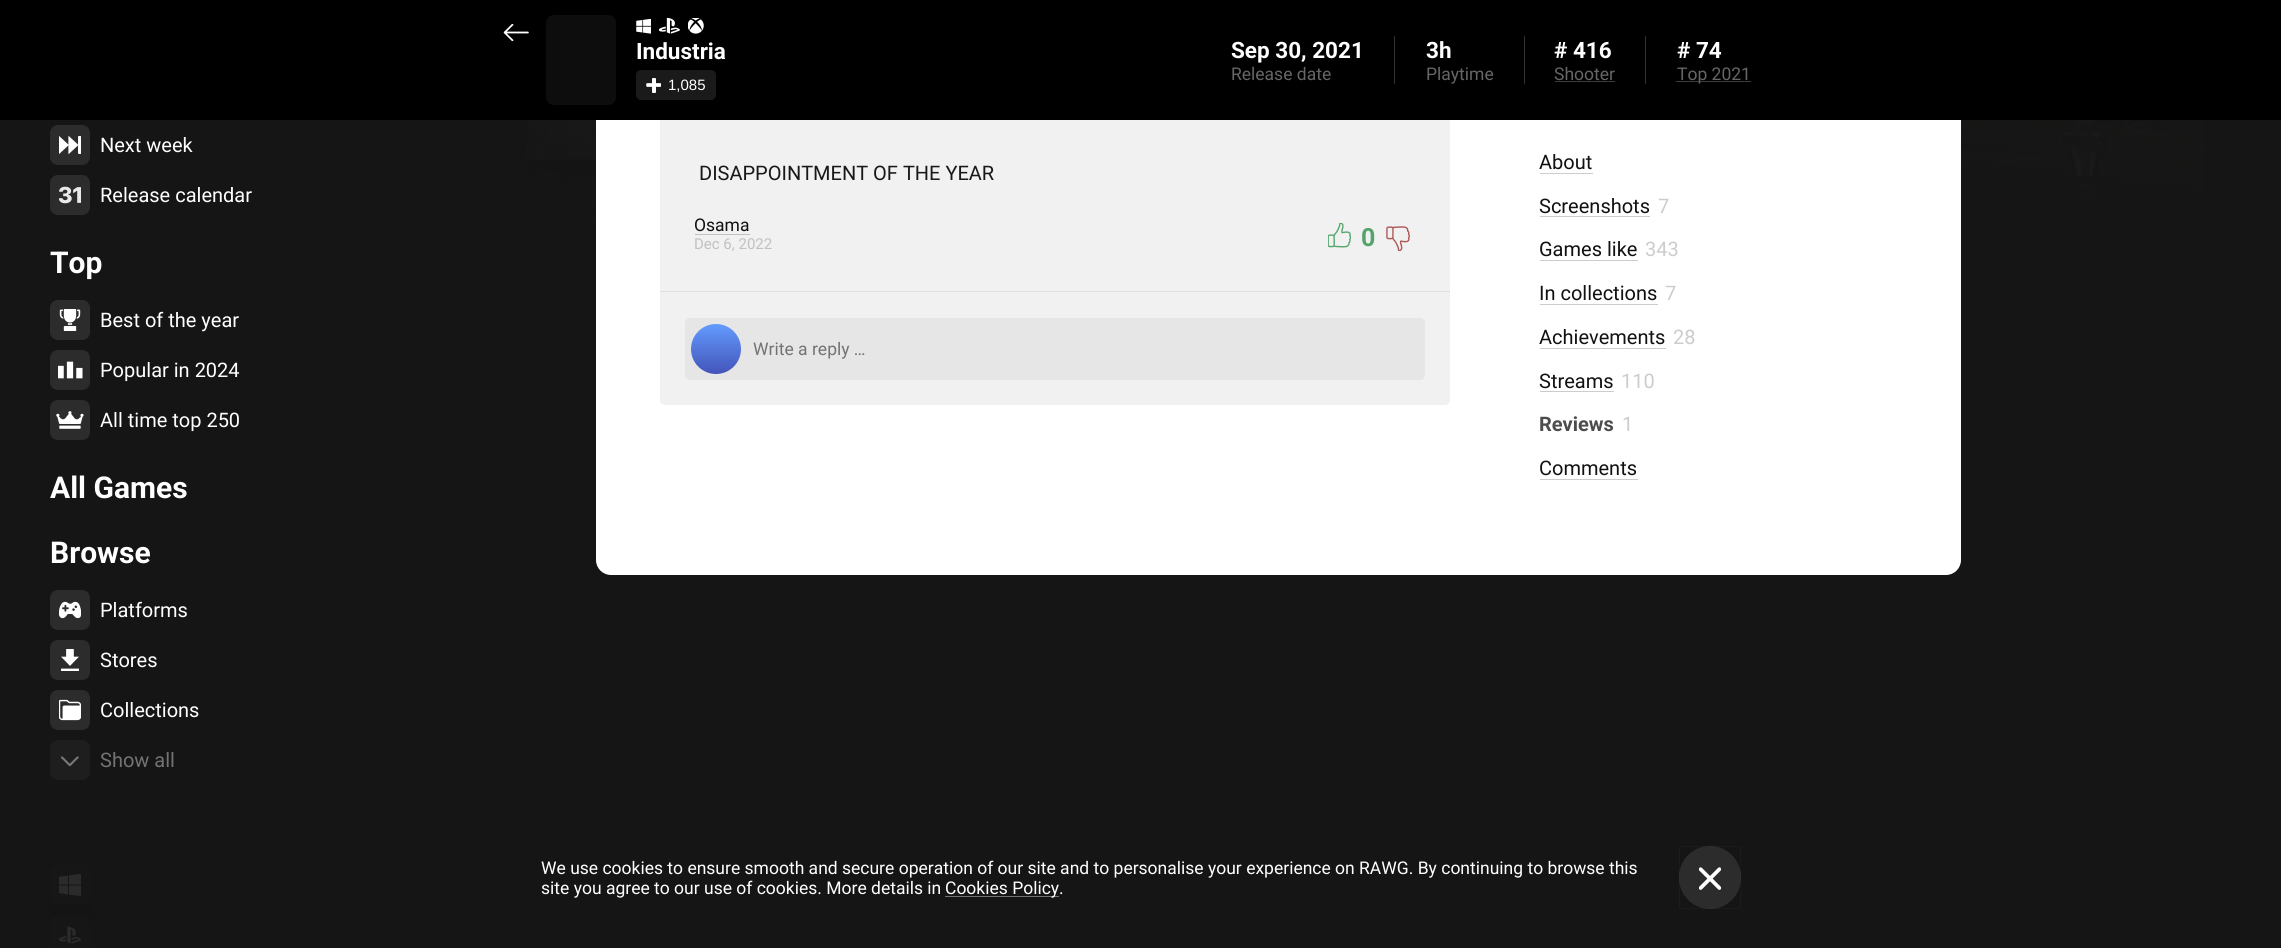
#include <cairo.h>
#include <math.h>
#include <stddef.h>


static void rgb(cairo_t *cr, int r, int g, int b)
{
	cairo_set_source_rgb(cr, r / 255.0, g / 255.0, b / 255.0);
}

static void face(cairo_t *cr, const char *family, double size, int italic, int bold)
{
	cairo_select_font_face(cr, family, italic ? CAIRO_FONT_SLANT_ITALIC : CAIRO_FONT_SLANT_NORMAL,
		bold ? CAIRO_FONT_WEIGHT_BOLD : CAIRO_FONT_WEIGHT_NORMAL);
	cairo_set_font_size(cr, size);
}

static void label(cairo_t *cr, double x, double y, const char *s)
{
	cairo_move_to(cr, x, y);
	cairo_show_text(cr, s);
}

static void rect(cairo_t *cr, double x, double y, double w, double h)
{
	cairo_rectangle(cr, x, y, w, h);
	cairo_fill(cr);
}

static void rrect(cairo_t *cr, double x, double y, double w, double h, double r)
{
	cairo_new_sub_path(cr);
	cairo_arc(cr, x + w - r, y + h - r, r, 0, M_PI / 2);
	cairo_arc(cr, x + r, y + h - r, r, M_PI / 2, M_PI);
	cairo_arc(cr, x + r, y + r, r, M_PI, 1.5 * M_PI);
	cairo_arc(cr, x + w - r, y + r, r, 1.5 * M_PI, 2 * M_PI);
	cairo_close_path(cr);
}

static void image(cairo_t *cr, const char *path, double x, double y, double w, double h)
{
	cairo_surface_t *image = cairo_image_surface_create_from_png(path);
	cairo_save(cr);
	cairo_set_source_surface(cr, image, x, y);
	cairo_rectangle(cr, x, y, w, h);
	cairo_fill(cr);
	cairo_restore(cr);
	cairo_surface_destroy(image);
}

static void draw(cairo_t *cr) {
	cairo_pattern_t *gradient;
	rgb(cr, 21, 21, 21);
	cairo_paint(cr);
	image(cr, "image5.png", 527, 120, 1677, 120);
	rgb(cr, 255, 255, 255);
	rrect(cr, 596, -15, 1365, 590, 15);
	cairo_fill(cr);
	rgb(cr, 241, 241, 241);
	rrect(cr, 660, 110, 790, 295, 5);
	cairo_fill(cr);
	rgb(cr, 0, 0, 0);
	rect(cr, 0, 0, 2281, 120);
	rgb(cr, 13, 13, 13);
	rrect(cr, 546, 15, 70, 90, 8);
	cairo_fill(cr);
	image(cr, "image0.png", 636, 19, 15, 15);
	image(cr, "image1.png", 659, 18, 21, 16);
	image(cr, "image2.png", 688, 18, 16, 16);
	image(cr, "image3.png", 503, 24, 26, 17);
	face(cr, "Roboto", 22.5, 0, 1);
	rgb(cr, 255, 255, 255);
	label(cr, 636, 59, "Industria");
	rgb(cr, 26, 26, 26);
	rrect(cr, 636, 70, 80, 30, 5);
	cairo_fill(cr);
	image(cr, "image4.png", 646, 78, 15, 15);
	face(cr, "Liberation Sans", 15, 0, 0);
	rgb(cr, 255, 255, 255);
	label(cr, 668, 90, "1,085");
	rgb(cr, 51, 51, 51);
	rect(cr, 1394, 36, 1, 48);
	face(cr, "Roboto", 22.5, 0, 1);
	rgb(cr, 255, 255, 255);
	label(cr, 1231, 58, "Sep 30, 2021");
	face(cr, "Roboto", 17.5, 0, 0);
	rgb(cr, 102, 102, 102);
	label(cr, 1231, 80, "Release date");
	rgb(cr, 51, 51, 51);
	rect(cr, 1524, 36, 1, 48);
	face(cr, "Roboto", 22.5, 0, 1);
	rgb(cr, 255, 255, 255);
	label(cr, 1426, 58, "3h");
	face(cr, "Roboto", 17.5, 0, 0);
	rgb(cr, 102, 102, 102);
	label(cr, 1426, 80, "Playtime");
	rgb(cr, 51, 51, 51);
	rect(cr, 1645, 36, 1, 48);
	face(cr, "Roboto", 22.5, 0, 1);
	rgb(cr, 255, 255, 255);
	label(cr, 1554, 58, "# 416");
	face(cr, "Roboto", 17.5, 0, 0);
	rgb(cr, 102, 102, 102);
	label(cr, 1554, 80, "Shooter");
	rgb(cr, 61, 61, 61);
	rect(cr, 1555, 81, 60, 1);
	face(cr, "Roboto", 22.5, 0, 1);
	rgb(cr, 255, 255, 255);
	label(cr, 1677, 58, "# 74");
	rgb(cr, 61, 61, 61);
	rect(cr, 1676, 81, 75, 1);
	face(cr, "Roboto", 17.5, 0, 0);
	rgb(cr, 102, 102, 102);
	label(cr, 1677, 80, "Top 2021");
	rgb(cr, 44, 44, 44);
	rrect(cr, 50, 125, 40, 40, 8);
	cairo_fill(cr);
	image(cr, "image6.png", 59, 136, 22, 18);
	face(cr, "Roboto", 20, 0, 0);
	rgb(cr, 255, 255, 255);
	label(cr, 100, 152, "Next week");
	rgb(cr, 44, 44, 44);
	rrect(cr, 50, 175, 40, 40, 8);
	cairo_fill(cr);
	image(cr, "image7.png", 59, 186, 22, 18);
	rgb(cr, 255, 255, 255);
	label(cr, 100, 202, "Release calendar");
	face(cr, "Roboto", 30, 0, 1);
	label(cr, 50, 273, "Top");
	rgb(cr, 44, 44, 44);
	rrect(cr, 50, 300, 40, 40, 8);
	cairo_fill(cr);
	image(cr, "image8.png", 59, 309, 22, 22);
	face(cr, "Roboto", 20, 0, 0);
	rgb(cr, 255, 255, 255);
	label(cr, 100, 327, "Best of the year");
	rgb(cr, 44, 44, 44);
	rrect(cr, 50, 350, 40, 40, 8);
	cairo_fill(cr);
	image(cr, "image9.png", 58, 361, 25, 18);
	rgb(cr, 255, 255, 255);
	label(cr, 100, 377, "Popular in 2024");
	rgb(cr, 44, 44, 44);
	rrect(cr, 50, 400, 40, 40, 8);
	cairo_fill(cr);
	image(cr, "image10.png", 56, 411, 28, 18);
	rgb(cr, 255, 255, 255);
	label(cr, 100, 427, "All time top 250");
	face(cr, "Roboto", 30, 0, 1);
	label(cr, 50, 498, "All Games");
	label(cr, 50, 563, "Browse");
	rgb(cr, 44, 44, 44);
	rrect(cr, 50, 590, 40, 40, 8);
	cairo_fill(cr);
	image(cr, "image11.png", 59, 601, 22, 18);
	face(cr, "Roboto", 20, 0, 0);
	rgb(cr, 255, 255, 255);
	label(cr, 100, 617, "Platforms");
	rgb(cr, 44, 44, 44);
	rrect(cr, 50, 640, 40, 40, 8);
	cairo_fill(cr);
	image(cr, "image12.png", 61, 649, 18, 22);
	rgb(cr, 255, 255, 255);
	label(cr, 100, 667, "Stores");
	rgb(cr, 44, 44, 44);
	rrect(cr, 50, 690, 40, 40, 8);
	cairo_fill(cr);
	image(cr, "image13.png", 59, 699, 22, 22);
	rgb(cr, 255, 255, 255);
	label(cr, 100, 717, "Collections");
	rgb(cr, 30, 30, 30);
	rrect(cr, 50, 740, 40, 40, 8);
	cairo_fill(cr);
	image(cr, "image14.png", 60, 756, 19, 10);
	rgb(cr, 115, 115, 115);
	label(cr, 100, 767, "Show all");
	rgb(cr, 44, 44, 44);
	rrect(cr, 50, 865, 40, 40, 8);
	cairo_fill(cr);
	image(cr, "image15.png", 59, 874, 22, 22);
	rrect(cr, 50, 915, 40, 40, 8);
	cairo_fill(cr);
	image(cr, "image16.png", 59, 926, 22, 18);
	rgb(cr, 24, 24, 24);
	label(cr, 699, 180, "DISAPPOINTMENT OF THE YEAR");
	rgb(cr, 193, 193, 193);
	rect(cr, 695, 234, 55, 1);
	face(cr, "Roboto", 17.5, 0, 0);
	rgb(cr, 17, 17, 17);
	label(cr, 694, 231, "Osama");
	face(cr, "Roboto", 15, 0, 0);
	rgb(cr, 193, 193, 193);
	label(cr, 694, 249, "Dec 6, 2022");
	image(cr, "image17.png", 1328, 223, 23, 25);
	face(cr, "Roboto", 25, 0, 1);
	rgb(cr, 85, 162, 106);
	label(cr, 1361, 246, "0");
	image(cr, "image18.png", 1386, 226, 24, 25);
	rgb(cr, 223, 223, 223);
	rect(cr, 660, 291, 790, 1);
	rgb(cr, 230, 230, 230);
	rrect(cr, 685, 318, 740, 62, 5);
	cairo_fill(cr);
	gradient = cairo_pattern_create_linear(716, 374, 716, 324);
	cairo_pattern_add_color_stop_rgba(gradient, 0, 0.263, 0.329, 0.725, 1);
	cairo_pattern_add_color_stop_rgba(gradient, 1, 0.392, 0.608, 1, 1);
	cairo_set_source(cr, gradient);
	cairo_pattern_destroy(gradient);
	cairo_arc(cr, 716, 349, 25, 0, 2 * M_PI);
	cairo_fill(cr);
	face(cr, "Roboto", 17.5, 0, 0);
	rgb(cr, 115, 115, 115);
	label(cr, 753, 355, "Write a reply …");
	rgb(cr, 204, 204, 204);
	rect(cr, 1540, 173, 53, 1);
	face(cr, "Roboto", 20, 0, 0);
	rgb(cr, 17, 17, 17);
	label(cr, 1539, 169, "About");
	rgb(cr, 204, 204, 204);
	rect(cr, 1540, 216, 110, 1);
	rgb(cr, 17, 17, 17);
	label(cr, 1539, 213, "Screenshots");
	rgb(cr, 204, 204, 204);
	label(cr, 1658, 213, "7");
	rect(cr, 1540, 260, 98, 1);
	rgb(cr, 17, 17, 17);
	label(cr, 1539, 256, "Games like");
	rgb(cr, 204, 204, 204);
	label(cr, 1645, 256, "343");
	rect(cr, 1540, 304, 118, 1);
	rgb(cr, 17, 17, 17);
	label(cr, 1539, 300, "In collections");
	rgb(cr, 204, 204, 204);
	label(cr, 1665, 300, "7");
	rect(cr, 1540, 348, 126, 1);
	rgb(cr, 17, 17, 17);
	label(cr, 1539, 344, "Achievements");
	rgb(cr, 204, 204, 204);
	label(cr, 1673, 344, "28");
	rect(cr, 1540, 391, 74, 1);
	rgb(cr, 17, 17, 17);
	label(cr, 1539, 388, "Streams");
	rgb(cr, 204, 204, 204);
	label(cr, 1621, 388, "110");
	face(cr, "Roboto", 20, 0, 1);
	rgb(cr, 77, 77, 77);
	label(cr, 1539, 431, "Reviews");
	face(cr, "Roboto", 20, 0, 0);
	rgb(cr, 204, 204, 204);
	label(cr, 1622, 431, "1");
	rect(cr, 1540, 479, 98, 1);
	rgb(cr, 17, 17, 17);
	label(cr, 1539, 475, "Comments");
	cairo_set_source_rgba(cr, 0.082, 0.082, 0.082, 0.9);
	rect(cr, 50, 865, 40, 83);
	face(cr, "Roboto", 17.5, 0, 0);
	rgb(cr, 255, 255, 255);
	label(cr, 541, 874, "We use cookies to ensure smooth and secure operation of our site and to personalise your experience on RAWG. By continuing to browse this");
	label(cr, 541, 894, "site you agree to our use of cookies. More details in");
	rgb(cr, 115, 115, 115);
	rect(cr, 945, 896, 114, 1);
	rgb(cr, 255, 255, 255);
	label(cr, 945, 894, "Cookies Policy.");
	rgb(cr, 44, 44, 44);
	rrect(cr, 1679, 846, 62, 63, 31);
	cairo_fill(cr);
	cairo_rectangle(cr, 1679.5, 846.5, 61, 62);
	cairo_set_source_rgba(cr, 0.592, 0.592, 0.592, 0.05);
	cairo_set_line_width(cr, 1);
	cairo_stroke(cr);
	image(cr, "image19.png", 1699, 867, 22, 23);
}

int main(void) {
	cairo_surface_t *surface = cairo_image_surface_create(CAIRO_FORMAT_RGB24, 2281, 948);
	cairo_t *cr = cairo_create(surface);
	cairo_font_options_t *options = cairo_font_options_create();
	cairo_font_options_set_hint_metrics(options, CAIRO_HINT_METRICS_OFF);
	cairo_font_options_set_hint_style(options, CAIRO_HINT_STYLE_NONE);
	cairo_set_font_options(cr, options);
	cairo_set_miter_limit(cr, 4);
	draw(cr);
	cairo_surface_write_to_png(surface, "render.png");
	cairo_font_options_destroy(options);
	cairo_destroy(cr);
	cairo_surface_destroy(surface);
	return 0;
}
